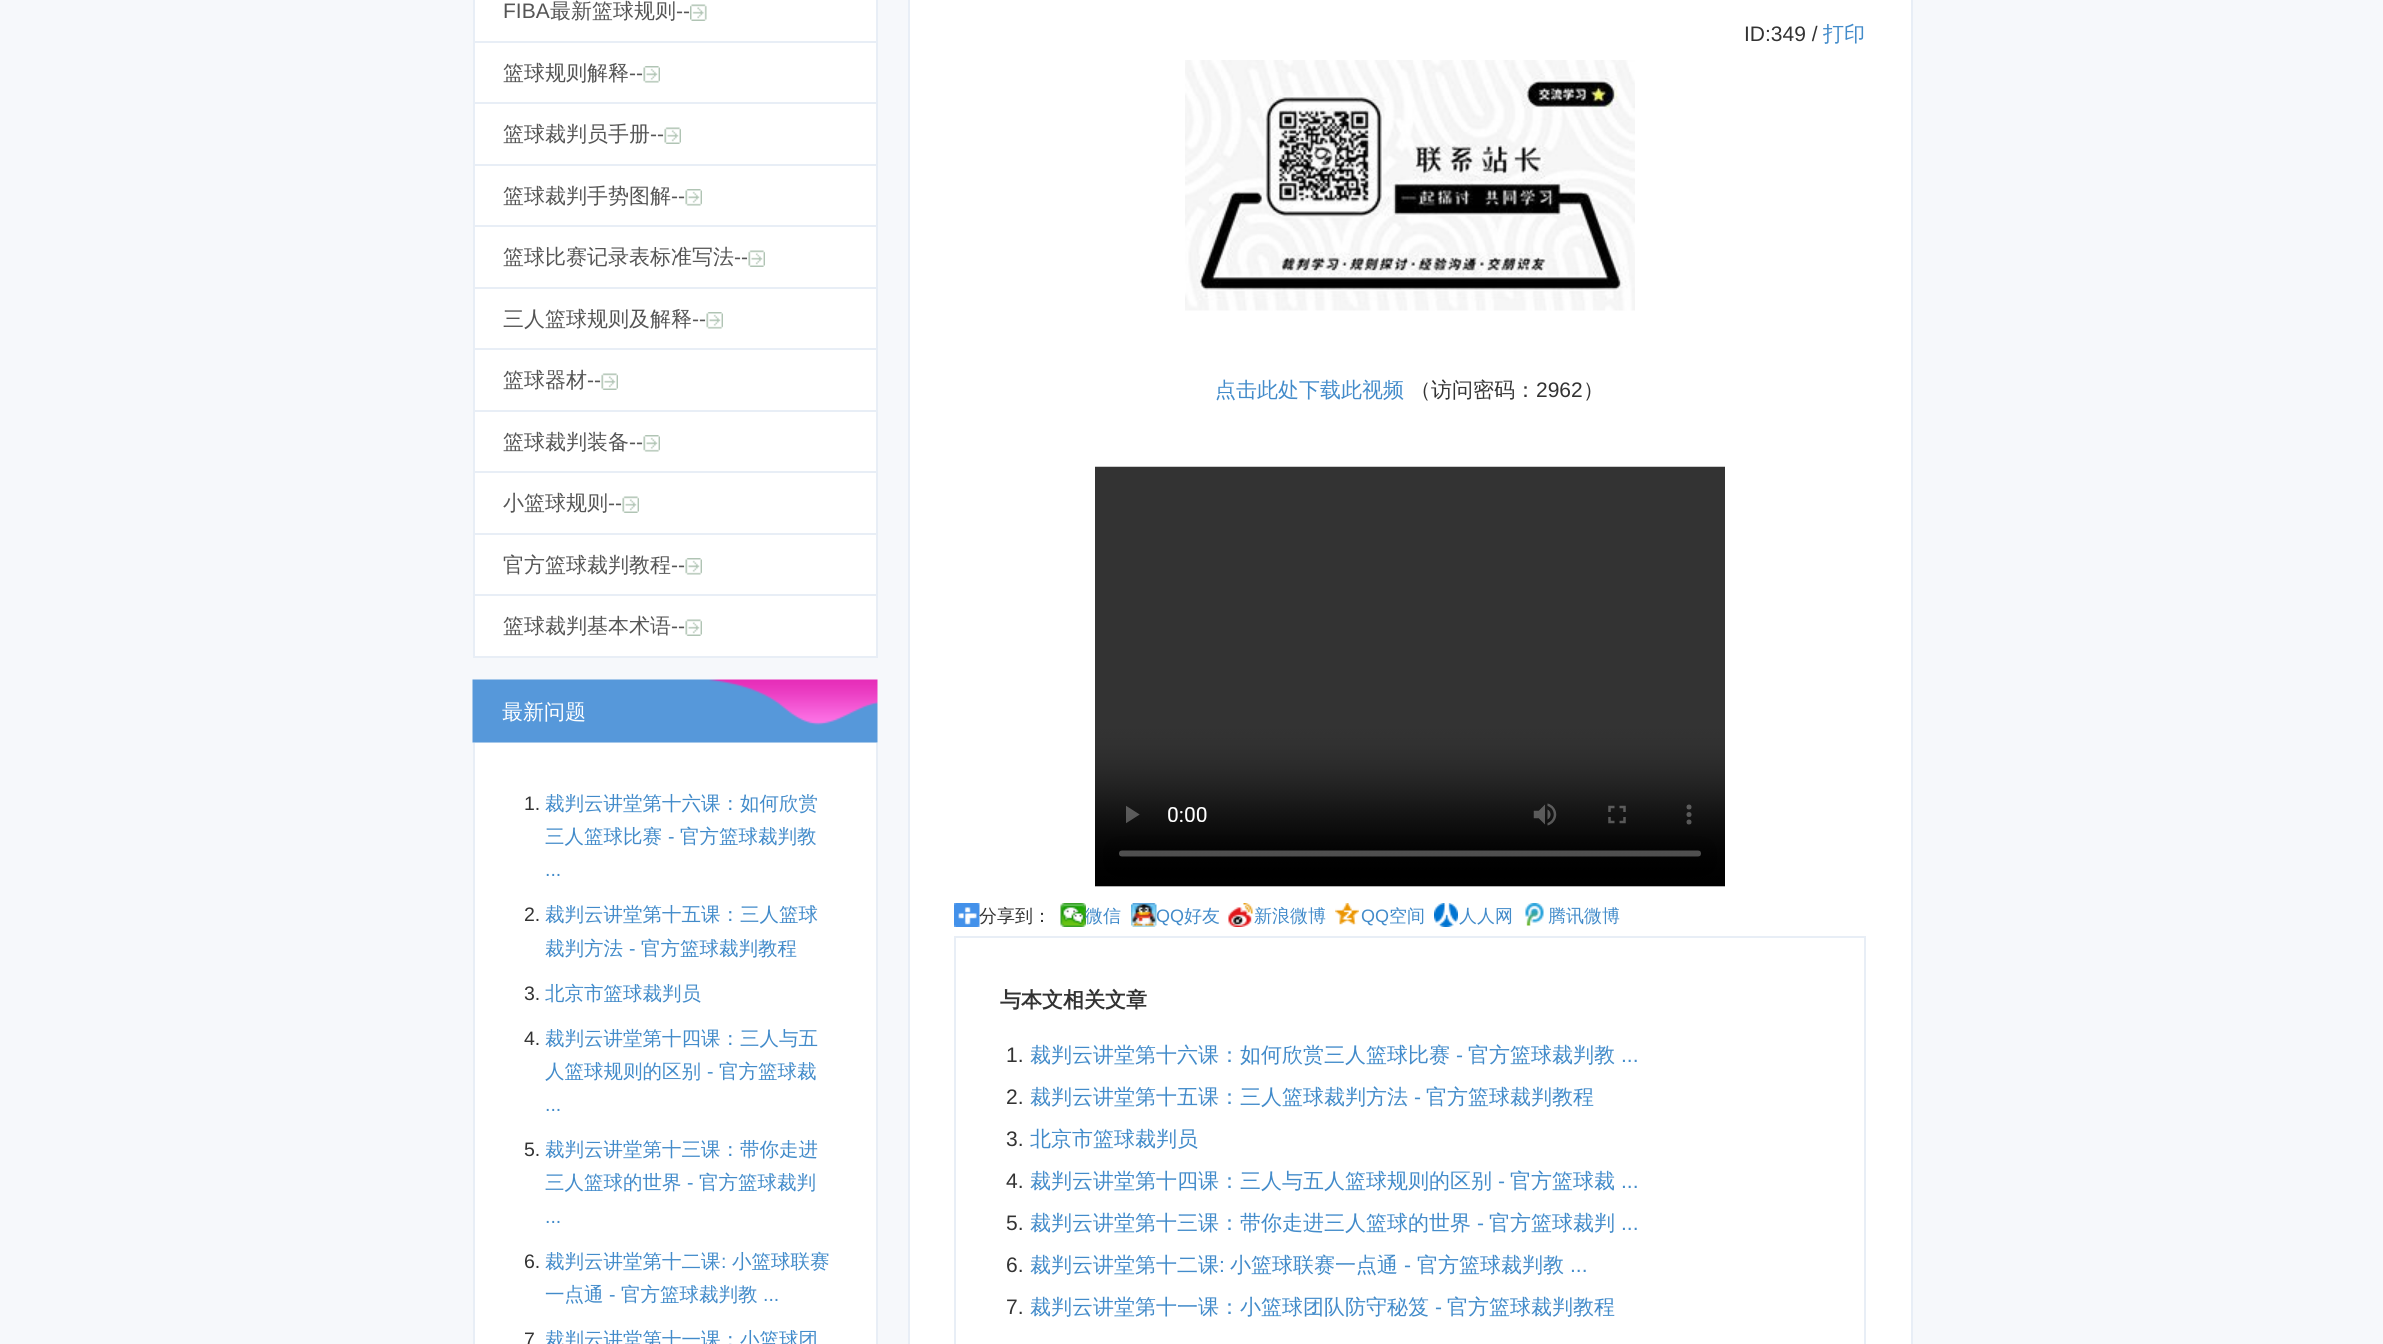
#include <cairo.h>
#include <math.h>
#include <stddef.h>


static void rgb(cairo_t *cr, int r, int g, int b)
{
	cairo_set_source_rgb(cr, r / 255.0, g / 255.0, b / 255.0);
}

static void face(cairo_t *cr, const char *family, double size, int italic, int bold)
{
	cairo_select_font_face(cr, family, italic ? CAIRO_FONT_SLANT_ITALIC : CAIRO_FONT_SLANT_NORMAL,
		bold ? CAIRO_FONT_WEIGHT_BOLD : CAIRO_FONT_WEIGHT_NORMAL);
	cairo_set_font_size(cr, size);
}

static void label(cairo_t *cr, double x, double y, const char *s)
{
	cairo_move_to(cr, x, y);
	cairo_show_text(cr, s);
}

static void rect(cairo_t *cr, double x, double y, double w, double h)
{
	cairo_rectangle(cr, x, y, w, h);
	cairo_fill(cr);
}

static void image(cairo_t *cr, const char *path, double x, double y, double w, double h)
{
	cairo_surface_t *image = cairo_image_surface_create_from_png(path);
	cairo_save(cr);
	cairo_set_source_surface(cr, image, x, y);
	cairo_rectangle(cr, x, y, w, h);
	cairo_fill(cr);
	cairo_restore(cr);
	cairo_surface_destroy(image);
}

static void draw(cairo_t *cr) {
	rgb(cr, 246, 248, 251);
	cairo_paint(cr);
	rgb(cr, 255, 255, 255);
	rect(cr, 475, 0, 401, 656);
	rgb(cr, 232, 238, 246);
	rect(cr, 876, 0, 2, 42);
	rect(cr, 473, 41, 405, 2);
	rect(cr, 473, 0, 2, 42);
	face(cr, "Liberation Sans", 21, 0, 0);
	rgb(cr, 85, 85, 85);
	label(cr, 503, 18, "FIBA");
	face(cr, "WenQuanYi Zen Hei Medium", 21, 0, 0);
	label(cr, 550, 18, "最新篮球规则");
	face(cr, "Liberation Sans", 21, 0, 0);
	label(cr, 676, 18, "--");
	image(cr, "image0.png", 690, 4, 17, 17);
	rgb(cr, 232, 238, 246);
	rect(cr, 876, 42, 2, 123);
	rect(cr, 473, 102, 405, 2);
	rect(cr, 473, 42, 2, 62);
	face(cr, "WenQuanYi Zen Hei Medium", 21, 0, 0);
	rgb(cr, 85, 85, 85);
	label(cr, 503, 80, "篮球规则解释");
	face(cr, "Liberation Sans", 21, 0, 0);
	label(cr, 629, 80, "--");
	image(cr, "image1.png", 643, 66, 17, 17);
	rgb(cr, 232, 238, 246);
	rect(cr, 473, 164, 405, 2);
	rect(cr, 473, 104, 2, 61);
	face(cr, "WenQuanYi Zen Hei Medium", 21, 0, 0);
	rgb(cr, 85, 85, 85);
	label(cr, 503, 141, "篮球裁判员手册");
	face(cr, "Liberation Sans", 21, 0, 0);
	label(cr, 650, 141, "--");
	image(cr, "image2.png", 664, 127, 17, 17);
	rgb(cr, 232, 238, 246);
	rect(cr, 876, 165, 2, 123);
	rect(cr, 473, 225, 405, 2);
	rect(cr, 473, 165, 2, 62);
	face(cr, "WenQuanYi Zen Hei Medium", 21, 0, 0);
	rgb(cr, 85, 85, 85);
	label(cr, 503, 203, "篮球裁判手势图解");
	face(cr, "Liberation Sans", 21, 0, 0);
	label(cr, 671, 203, "--");
	image(cr, "image1.png", 685, 189, 17, 17);
	rgb(cr, 232, 238, 246);
	rect(cr, 473, 287, 405, 2);
	rect(cr, 473, 227, 2, 61);
	face(cr, "WenQuanYi Zen Hei Medium", 21, 0, 0);
	rgb(cr, 85, 85, 85);
	label(cr, 503, 264, "篮球比赛记录表标准写法");
	face(cr, "Liberation Sans", 21, 0, 0);
	label(cr, 734, 264, "--");
	image(cr, "image2.png", 748, 250, 17, 17);
	rgb(cr, 232, 238, 246);
	rect(cr, 876, 288, 2, 123);
	rect(cr, 473, 348, 405, 2);
	rect(cr, 473, 288, 2, 62);
	face(cr, "WenQuanYi Zen Hei Medium", 21, 0, 0);
	rgb(cr, 85, 85, 85);
	label(cr, 503, 326, "三人篮球规则及解释");
	face(cr, "Liberation Sans", 21, 0, 0);
	label(cr, 692, 326, "--");
	image(cr, "image1.png", 706, 312, 17, 17);
	rgb(cr, 232, 238, 246);
	rect(cr, 473, 410, 405, 2);
	rect(cr, 473, 350, 2, 61);
	face(cr, "WenQuanYi Zen Hei Medium", 21, 0, 0);
	rgb(cr, 85, 85, 85);
	label(cr, 503, 387, "篮球器材");
	face(cr, "Liberation Sans", 21, 0, 0);
	label(cr, 587, 387, "--");
	image(cr, "image2.png", 601, 373, 17, 17);
	rgb(cr, 232, 238, 246);
	rect(cr, 876, 411, 2, 123);
	rect(cr, 473, 471, 405, 2);
	rect(cr, 473, 411, 2, 62);
	face(cr, "WenQuanYi Zen Hei Medium", 21, 0, 0);
	rgb(cr, 85, 85, 85);
	label(cr, 503, 449, "篮球裁判装备");
	face(cr, "Liberation Sans", 21, 0, 0);
	label(cr, 629, 449, "--");
	image(cr, "image1.png", 643, 435, 17, 17);
	rgb(cr, 232, 238, 246);
	rect(cr, 473, 533, 405, 2);
	rect(cr, 473, 473, 2, 61);
	face(cr, "WenQuanYi Zen Hei Medium", 21, 0, 0);
	rgb(cr, 85, 85, 85);
	label(cr, 503, 510, "小篮球规则");
	face(cr, "Liberation Sans", 21, 0, 0);
	label(cr, 608, 510, "--");
	image(cr, "image2.png", 622, 496, 17, 17);
	rgb(cr, 232, 238, 246);
	rect(cr, 876, 534, 2, 123);
	rect(cr, 473, 594, 405, 2);
	rect(cr, 473, 534, 2, 62);
	face(cr, "WenQuanYi Zen Hei Medium", 21, 0, 0);
	rgb(cr, 85, 85, 85);
	label(cr, 503, 572, "官方篮球裁判教程");
	face(cr, "Liberation Sans", 21, 0, 0);
	label(cr, 671, 572, "--");
	image(cr, "image1.png", 685, 558, 17, 17);
	rgb(cr, 232, 238, 246);
	rect(cr, 473, 656, 405, 2);
	rect(cr, 473, 596, 2, 61);
	face(cr, "WenQuanYi Zen Hei Medium", 21, 0, 0);
	rgb(cr, 85, 85, 85);
	label(cr, 503, 633, "篮球裁判基本术语");
	face(cr, "Liberation Sans", 21, 0, 0);
	label(cr, 671, 633, "--");
	image(cr, "image2.png", 685, 619, 17, 17);
	image(cr, "image3.png", 472, 679, 406, 64);
	face(cr, "WenQuanYi Zen Hei Medium", 21, 0, 0);
	rgb(cr, 255, 255, 255);
	label(cr, 502, 719, "最新问题");
	rect(cr, 475, 743, 401, 601);
	rgb(cr, 232, 238, 246);
	rect(cr, 876, 743, 2, 601);
	rect(cr, 473, 743, 2, 601);
	face(cr, "Liberation Sans", 19.5, 0, 0);
	rgb(cr, 51, 51, 51);
	label(cr, 524, 810, "1.");
	face(cr, "WenQuanYi Zen Hei Medium", 19.5, 0, 0);
	rgb(cr, 66, 139, 202);
	label(cr, 545, 810, "裁判云讲堂第十六课：如何欣赏");
	label(cr, 545, 843, "三人篮球比赛");
	face(cr, "Liberation Sans", 19.5, 0, 0);
	label(cr, 668, 843, "-");
	face(cr, "WenQuanYi Zen Hei Medium", 19.5, 0, 0);
	label(cr, 680, 843, "官方篮球裁判教");
	face(cr, "Liberation Sans", 19.5, 0, 0);
	label(cr, 545, 876, "...");
	rgb(cr, 51, 51, 51);
	label(cr, 524, 921, "2.");
	face(cr, "WenQuanYi Zen Hei Medium", 19.5, 0, 0);
	rgb(cr, 66, 139, 202);
	label(cr, 545, 921, "裁判云讲堂第十五课：三人篮球");
	label(cr, 545, 955, "裁判方法");
	face(cr, "Liberation Sans", 19.5, 0, 0);
	label(cr, 629, 955, "-");
	face(cr, "WenQuanYi Zen Hei Medium", 19.5, 0, 0);
	label(cr, 641, 955, "官方篮球裁判教程");
	face(cr, "Liberation Sans", 19.5, 0, 0);
	rgb(cr, 51, 51, 51);
	label(cr, 524, 1000, "3.");
	face(cr, "WenQuanYi Zen Hei Medium", 19.5, 0, 0);
	rgb(cr, 66, 139, 202);
	label(cr, 545, 1000, "北京市篮球裁判员");
	face(cr, "Liberation Sans", 19.5, 0, 0);
	rgb(cr, 51, 51, 51);
	label(cr, 524, 1045, "4.");
	face(cr, "WenQuanYi Zen Hei Medium", 19.5, 0, 0);
	rgb(cr, 66, 139, 202);
	label(cr, 545, 1045, "裁判云讲堂第十四课：三人与五");
	label(cr, 545, 1078, "人篮球规则的区别");
	face(cr, "Liberation Sans", 19.5, 0, 0);
	label(cr, 707, 1078, "-");
	face(cr, "WenQuanYi Zen Hei Medium", 19.5, 0, 0);
	label(cr, 719, 1078, "官方篮球裁");
	face(cr, "Liberation Sans", 19.5, 0, 0);
	label(cr, 545, 1111, "...");
	rgb(cr, 51, 51, 51);
	label(cr, 524, 1156, "5.");
	face(cr, "WenQuanYi Zen Hei Medium", 19.5, 0, 0);
	rgb(cr, 66, 139, 202);
	label(cr, 545, 1156, "裁判云讲堂第十三课：带你走进");
	label(cr, 545, 1189, "三人篮球的世界");
	face(cr, "Liberation Sans", 19.5, 0, 0);
	label(cr, 687, 1189, "-");
	face(cr, "WenQuanYi Zen Hei Medium", 19.5, 0, 0);
	label(cr, 699, 1189, "官方篮球裁判");
	face(cr, "Liberation Sans", 19.5, 0, 0);
	label(cr, 545, 1223, "...");
	rgb(cr, 51, 51, 51);
	label(cr, 524, 1268, "6.");
	face(cr, "WenQuanYi Zen Hei Medium", 19.5, 0, 0);
	rgb(cr, 66, 139, 202);
	label(cr, 545, 1268, "裁判云讲堂第十二课");
	face(cr, "Liberation Sans", 19.5, 0, 0);
	label(cr, 721, 1268, ":");
	face(cr, "WenQuanYi Zen Hei Medium", 19.5, 0, 0);
	label(cr, 732, 1268, "小篮球联赛");
	label(cr, 545, 1301, "一点通");
	face(cr, "Liberation Sans", 19.5, 0, 0);
	label(cr, 609, 1301, "-");
	face(cr, "WenQuanYi Zen Hei Medium", 19.5, 0, 0);
	label(cr, 621, 1301, "官方篮球裁判教");
	face(cr, "Liberation Sans", 19.5, 0, 0);
	label(cr, 763, 1301, "...");
	rgb(cr, 51, 51, 51);
	label(cr, 524, 1346, "7");
	face(cr, "WenQuanYi Zen Hei Medium", 19.5, 0, 0);
	rgb(cr, 66, 139, 202);
	label(cr, 545, 1346, "裁判云讲堂第十一课：小篮球团");
	rgb(cr, 255, 255, 255);
	cairo_rectangle(cr, 909, -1, 1003, 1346);
	cairo_fill_preserve(cr);
	rgb(cr, 232, 238, 246);
	cairo_stroke(cr);
	face(cr, "Liberation Sans", 21, 0, 0);
	rgb(cr, 51, 51, 51);
	label(cr, 1744, 41, "ID:349 /");
	face(cr, "WenQuanYi Zen Hei Medium", 21, 0, 0);
	rgb(cr, 66, 139, 202);
	label(cr, 1823, 41, "打印");
	image(cr, "image4.png", 1185, 60, 450, 251);
	label(cr, 1215, 397, "点击此处下载此视频");
	rgb(cr, 51, 51, 51);
	label(cr, 1410, 397, "（访问密码：");
	face(cr, "Liberation Sans", 21, 0, 0);
	label(cr, 1536, 397, "2962");
	face(cr, "WenQuanYi Zen Hei Medium", 21, 0, 0);
	label(cr, 1583, 397, "）");
	image(cr, "image5.png", 1095, 466, 630, 421);
	image(cr, "image6.png", 954, 903, 26, 24);
	face(cr, "WenQuanYi Zen Hei Medium", 18, 0, 0);
	label(cr, 979, 922, "分享到：");
	image(cr, "image7.png", 1060, 903, 26, 24);
	rgb(cr, 66, 139, 202);
	label(cr, 1085, 922, "微信");
	image(cr, "image8.png", 1131, 903, 26, 24);
	face(cr, "Liberation Sans", 18, 0, 0);
	label(cr, 1156, 922, "QQ");
	face(cr, "WenQuanYi Zen Hei Medium", 18, 0, 0);
	label(cr, 1184, 922, "好友");
	image(cr, "image9.png", 1228, 903, 25, 24);
	label(cr, 1254, 922, "新浪微博");
	image(cr, "image10.png", 1335, 903, 24, 22);
	face(cr, "Liberation Sans", 18, 0, 0);
	label(cr, 1361, 922, "QQ");
	face(cr, "WenQuanYi Zen Hei Medium", 18, 0, 0);
	label(cr, 1389, 922, "空间");
	image(cr, "image11.png", 1434, 903, 24, 24);
	label(cr, 1459, 922, "人人网");
	image(cr, "image12.png", 1525, 903, 19, 23);
	label(cr, 1548, 922, "腾讯微博");
	cairo_rectangle(cr, 955, 937, 910, 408);
	rgb(cr, 232, 238, 246);
	cairo_stroke(cr);
	face(cr, "WenQuanYi Zen Hei", 21, 0, 1);
	rgb(cr, 51, 51, 51);
	label(cr, 1000, 1007, "与本文相关文章");
	face(cr, "Liberation Sans", 21, 0, 0);
	label(cr, 1006, 1062, "1.");
	face(cr, "WenQuanYi Zen Hei Medium", 21, 0, 0);
	rgb(cr, 66, 139, 202);
	label(cr, 1030, 1062, "裁判云讲堂第十六课：如何欣赏三人篮球比赛");
	face(cr, "Liberation Sans", 21, 0, 0);
	label(cr, 1456, 1062, "-");
	face(cr, "WenQuanYi Zen Hei Medium", 21, 0, 0);
	label(cr, 1468, 1062, "官方篮球裁判教");
	face(cr, "Liberation Sans", 21, 0, 0);
	label(cr, 1621, 1062, "...");
	rgb(cr, 51, 51, 51);
	label(cr, 1006, 1104, "2.");
	face(cr, "WenQuanYi Zen Hei Medium", 21, 0, 0);
	rgb(cr, 66, 139, 202);
	label(cr, 1030, 1104, "裁判云讲堂第十五课：三人篮球裁判方法");
	face(cr, "Liberation Sans", 21, 0, 0);
	label(cr, 1414, 1104, "-");
	face(cr, "WenQuanYi Zen Hei Medium", 21, 0, 0);
	label(cr, 1426, 1104, "官方篮球裁判教程");
	face(cr, "Liberation Sans", 21, 0, 0);
	rgb(cr, 51, 51, 51);
	label(cr, 1006, 1146, "3.");
	face(cr, "WenQuanYi Zen Hei Medium", 21, 0, 0);
	rgb(cr, 66, 139, 202);
	label(cr, 1030, 1146, "北京市篮球裁判员");
	face(cr, "Liberation Sans", 21, 0, 0);
	rgb(cr, 51, 51, 51);
	label(cr, 1006, 1188, "4.");
	face(cr, "WenQuanYi Zen Hei Medium", 21, 0, 0);
	rgb(cr, 66, 139, 202);
	label(cr, 1030, 1188, "裁判云讲堂第十四课：三人与五人篮球规则的区别");
	face(cr, "Liberation Sans", 21, 0, 0);
	label(cr, 1498, 1188, "-");
	face(cr, "WenQuanYi Zen Hei Medium", 21, 0, 0);
	label(cr, 1510, 1188, "官方篮球裁");
	face(cr, "Liberation Sans", 21, 0, 0);
	label(cr, 1621, 1188, "...");
	rgb(cr, 51, 51, 51);
	label(cr, 1006, 1230, "5.");
	face(cr, "WenQuanYi Zen Hei Medium", 21, 0, 0);
	rgb(cr, 66, 139, 202);
	label(cr, 1030, 1230, "裁判云讲堂第十三课：带你走进三人篮球的世界");
	face(cr, "Liberation Sans", 21, 0, 0);
	label(cr, 1477, 1230, "-");
	face(cr, "WenQuanYi Zen Hei Medium", 21, 0, 0);
	label(cr, 1489, 1230, "官方篮球裁判");
	face(cr, "Liberation Sans", 21, 0, 0);
	label(cr, 1621, 1230, "...");
	rgb(cr, 51, 51, 51);
	label(cr, 1006, 1272, "6.");
	face(cr, "WenQuanYi Zen Hei Medium", 21, 0, 0);
	rgb(cr, 66, 139, 202);
	label(cr, 1030, 1272, "裁判云讲堂第十二课");
	face(cr, "Liberation Sans", 21, 0, 0);
	label(cr, 1219, 1272, ":");
	face(cr, "WenQuanYi Zen Hei Medium", 21, 0, 0);
	label(cr, 1230, 1272, "小篮球联赛一点通");
	face(cr, "Liberation Sans", 21, 0, 0);
	label(cr, 1404, 1272, "-");
	face(cr, "WenQuanYi Zen Hei Medium", 21, 0, 0);
	label(cr, 1417, 1272, "官方篮球裁判教");
	face(cr, "Liberation Sans", 21, 0, 0);
	label(cr, 1570, 1272, "...");
	rgb(cr, 51, 51, 51);
	label(cr, 1006, 1314, "7.");
	face(cr, "WenQuanYi Zen Hei Medium", 21, 0, 0);
	rgb(cr, 66, 139, 202);
	label(cr, 1030, 1314, "裁判云讲堂第十一课：小篮球团队防守秘笈");
	face(cr, "Liberation Sans", 21, 0, 0);
	label(cr, 1435, 1314, "-");
	face(cr, "WenQuanYi Zen Hei Medium", 21, 0, 0);
	label(cr, 1447, 1314, "官方篮球裁判教程");
}

int main(void) {
	cairo_surface_t *surface = cairo_image_surface_create(CAIRO_FORMAT_RGB24, 2383, 1344);
	cairo_t *cr = cairo_create(surface);
	cairo_font_options_t *options = cairo_font_options_create();
	cairo_font_options_set_hint_metrics(options, CAIRO_HINT_METRICS_OFF);
	cairo_font_options_set_hint_style(options, CAIRO_HINT_STYLE_NONE);
	cairo_set_font_options(cr, options);
	cairo_set_miter_limit(cr, 4);
	draw(cr);
	cairo_surface_write_to_png(surface, "render.png");
	cairo_font_options_destroy(options);
	cairo_destroy(cr);
	cairo_surface_destroy(surface);
	return 0;
}
